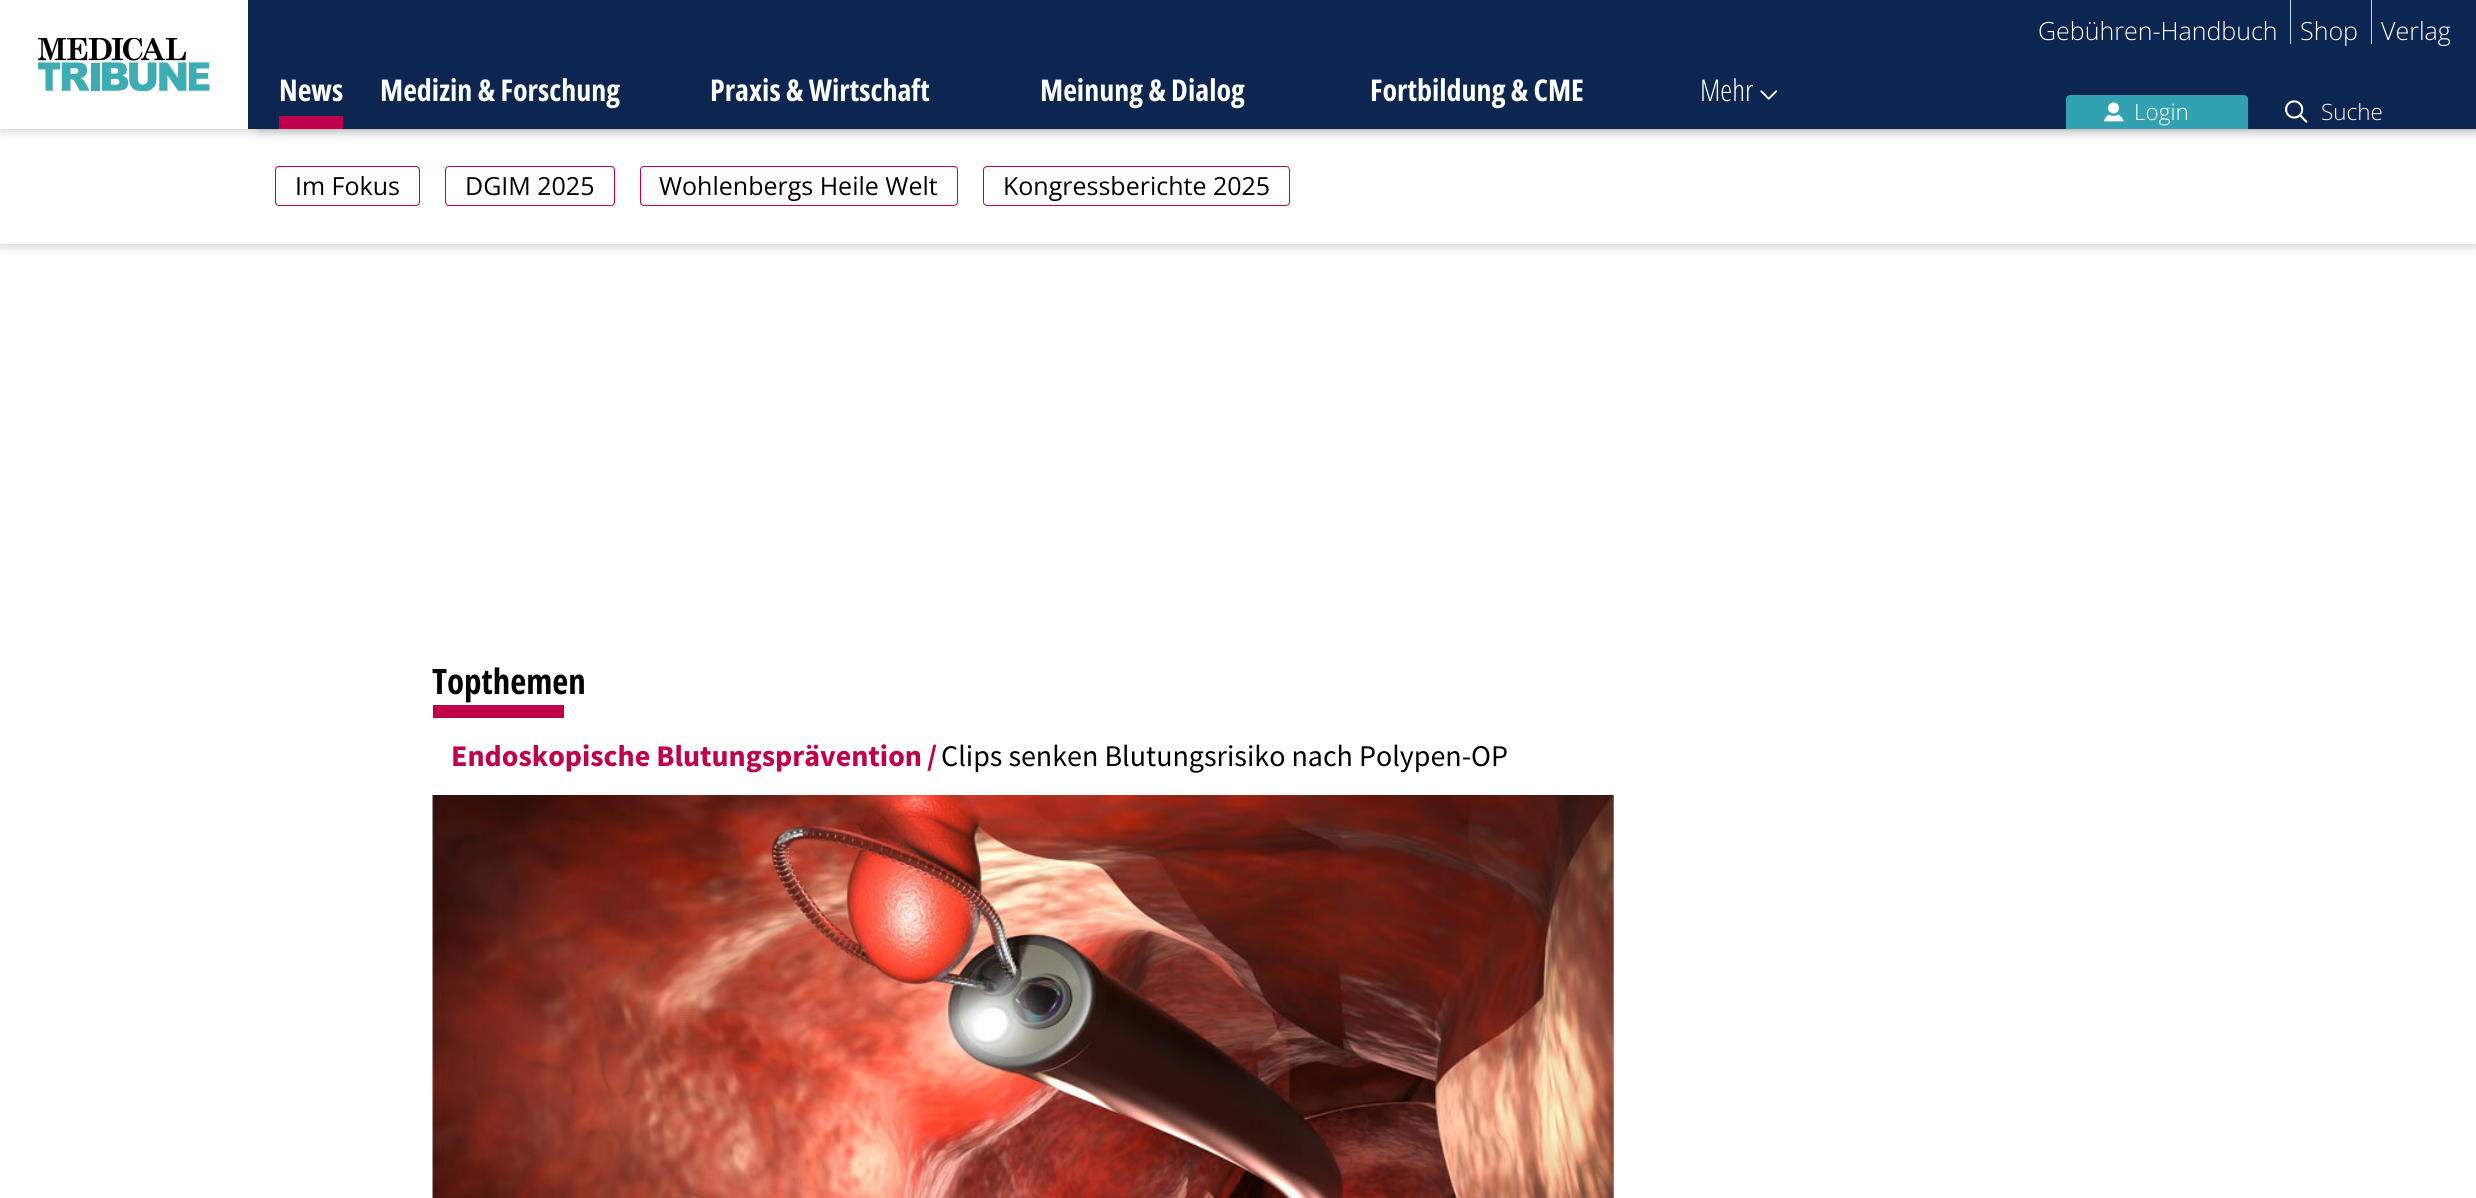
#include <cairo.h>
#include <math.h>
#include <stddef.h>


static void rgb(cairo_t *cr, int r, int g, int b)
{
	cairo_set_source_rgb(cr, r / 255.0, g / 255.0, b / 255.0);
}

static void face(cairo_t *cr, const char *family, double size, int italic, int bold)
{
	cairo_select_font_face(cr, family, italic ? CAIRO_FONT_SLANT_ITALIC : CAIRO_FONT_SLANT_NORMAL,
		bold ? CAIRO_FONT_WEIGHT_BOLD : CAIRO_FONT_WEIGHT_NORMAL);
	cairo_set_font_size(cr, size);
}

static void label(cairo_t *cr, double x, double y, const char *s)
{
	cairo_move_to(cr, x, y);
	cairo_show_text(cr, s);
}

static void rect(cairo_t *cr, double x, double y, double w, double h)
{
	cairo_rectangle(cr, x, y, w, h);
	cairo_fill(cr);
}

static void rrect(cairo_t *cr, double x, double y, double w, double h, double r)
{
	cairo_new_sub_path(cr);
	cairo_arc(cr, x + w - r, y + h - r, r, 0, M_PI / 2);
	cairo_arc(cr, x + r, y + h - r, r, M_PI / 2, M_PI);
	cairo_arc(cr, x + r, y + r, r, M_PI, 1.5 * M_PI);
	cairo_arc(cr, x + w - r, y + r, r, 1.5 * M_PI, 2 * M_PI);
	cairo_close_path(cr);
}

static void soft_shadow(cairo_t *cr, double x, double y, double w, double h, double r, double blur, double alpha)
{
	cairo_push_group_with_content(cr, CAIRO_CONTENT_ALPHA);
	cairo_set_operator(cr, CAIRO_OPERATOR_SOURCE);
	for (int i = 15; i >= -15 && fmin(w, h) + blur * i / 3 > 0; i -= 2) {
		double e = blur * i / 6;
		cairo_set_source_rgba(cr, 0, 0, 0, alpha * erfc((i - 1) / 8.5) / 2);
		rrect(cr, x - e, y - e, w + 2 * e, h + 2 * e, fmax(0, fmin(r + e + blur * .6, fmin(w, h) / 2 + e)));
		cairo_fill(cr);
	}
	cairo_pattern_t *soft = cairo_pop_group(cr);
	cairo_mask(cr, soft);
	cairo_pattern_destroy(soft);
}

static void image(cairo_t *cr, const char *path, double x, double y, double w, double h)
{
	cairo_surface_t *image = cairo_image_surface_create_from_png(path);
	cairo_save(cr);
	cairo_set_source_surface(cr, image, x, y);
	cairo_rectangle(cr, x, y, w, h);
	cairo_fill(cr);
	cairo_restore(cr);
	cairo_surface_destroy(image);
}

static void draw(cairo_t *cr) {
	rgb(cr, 255, 255, 255);
	cairo_paint(cr);
	rgb(cr, 0, 0, 0);
	soft_shadow(cr, 0, 129, 2476, 115, 0, 6, 0.25);
	rgb(cr, 255, 255, 255);
	rect(cr, 0, 129, 2476, 115);
	rgb(cr, 0, 0, 0);
	soft_shadow(cr, 0, 0, 2476, 129, 0, 6, 0.25);
	rgb(cr, 255, 255, 255);
	rect(cr, 0, 0, 248, 129);
	image(cr, "image0.png", 38, 38, 172, 53);
	rgb(cr, 0, 0, 0);
	soft_shadow(cr, 260, 0, 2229, 129, 0, 6, 0.25);
	rgb(cr, 12, 37, 81);
	rect(cr, 248, 0, 2228, 129);
	face(cr, "Open Sans Light", 25, 0, 0);
	rgb(cr, 255, 255, 255);
	label(cr, 2038, 40, "Gebühren-Handbuch");
	rgb(cr, 183, 221, 226);
	rect(cr, 2290, 0, 1, 44);
	rgb(cr, 255, 255, 255);
	label(cr, 2300, 40, "Shop");
	rgb(cr, 183, 221, 226);
	rect(cr, 2371, 0, 1, 44);
	rgb(cr, 255, 255, 255);
	label(cr, 2381, 40, "Verlag");
	face(cr, "Open Sans Condensed", 30, 0, 1);
	label(cr, 279, 101, "News");
	rgb(cr, 193, 0, 76);
	rect(cr, 279, 116, 64, 13);
	rgb(cr, 255, 255, 255);
	label(cr, 380, 101, "Medizin & Forschung");
	label(cr, 710, 101, "Praxis & Wirtschaft");
	label(cr, 1040, 101, "Meinung & Dialog");
	label(cr, 1370, 101, "Fortbildung & CME");
	face(cr, "Open Sans Condensed Light", 30, 0, 0);
	label(cr, 1700, 101, "Mehr");
	image(cr, "image1.png", 1760, 90, 18, 10);
	rgb(cr, 48, 162, 177);
	cairo_new_path(cr);
	cairo_move_to(cr, 2070, 95);
	cairo_line_to(cr, 2244, 95);
	cairo_curve_to(cr, 2246, 95, 2248, 97, 2248, 99);
	cairo_line_to(cr, 2248, 129);
	cairo_line_to(cr, 2066, 129);
	cairo_line_to(cr, 2066, 99);
	cairo_curve_to(cr, 2066, 97, 2068, 95, 2070, 95);
	cairo_close_path(cr);
	cairo_fill(cr);
	image(cr, "image2.png", 2104, 102, 20, 20);
	face(cr, "Open Sans Light", 22.5, 0, 0);
	rgb(cr, 255, 255, 255);
	label(cr, 2134, 120, "Login");
	image(cr, "image3.png", 2285, 100, 23, 23);
	label(cr, 2321, 120, "Suche");
	rrect(cr, 275.5, 166.5, 144, 39, 3.5);
	rgb(cr, 193, 0, 76);
	cairo_set_line_width(cr, 1);
	cairo_stroke(cr);
	face(cr, "Open Sans", 25, 0, 0);
	rgb(cr, 2, 2, 2);
	label(cr, 295, 195, "Im Fokus");
	rrect(cr, 445.5, 166.5, 169, 39, 3.5);
	rgb(cr, 193, 0, 76);
	cairo_stroke(cr);
	rgb(cr, 2, 2, 2);
	label(cr, 465, 195, "DGIM 2025");
	rrect(cr, 640.5, 166.5, 317, 39, 3.5);
	rgb(cr, 193, 0, 76);
	cairo_stroke(cr);
	rgb(cr, 2, 2, 2);
	label(cr, 659, 195, "Wohlenbergs Heile Welt");
	rrect(cr, 983.5, 166.5, 306, 39, 3.5);
	rgb(cr, 193, 0, 76);
	cairo_stroke(cr);
	rgb(cr, 2, 2, 2);
	label(cr, 1003, 195, "Kongressberichte 2025");
	face(cr, "Open Sans Condensed", 35, 0, 1);
	label(cr, 432, 694, "Topthemen");
	rgb(cr, 193, 0, 76);
	rect(cr, 433, 705, 131, 13);
	face(cr, "Source Sans Pro", 30, 0, 1);
	label(cr, 451, 766, "Endoskopische Blutungsprävention");
	label(cr, 927, 766, "/");
	face(cr, "Source Sans Pro", 30, 0, 0);
	rgb(cr, 2, 2, 2);
	label(cr, 941, 766, "Clips senken Blutungsrisiko nach Polypen-OP");
	image(cr, "image4.png", 432, 795, 1182, 403);
}

int main(void) {
	cairo_surface_t *surface = cairo_image_surface_create(CAIRO_FORMAT_RGB24, 2476, 1198);
	cairo_t *cr = cairo_create(surface);
	cairo_font_options_t *options = cairo_font_options_create();
	cairo_font_options_set_hint_metrics(options, CAIRO_HINT_METRICS_OFF);
	cairo_font_options_set_hint_style(options, CAIRO_HINT_STYLE_NONE);
	cairo_set_font_options(cr, options);
	cairo_set_miter_limit(cr, 4);
	draw(cr);
	cairo_surface_write_to_png(surface, "render.png");
	cairo_font_options_destroy(options);
	cairo_destroy(cr);
	cairo_surface_destroy(surface);
	return 0;
}
